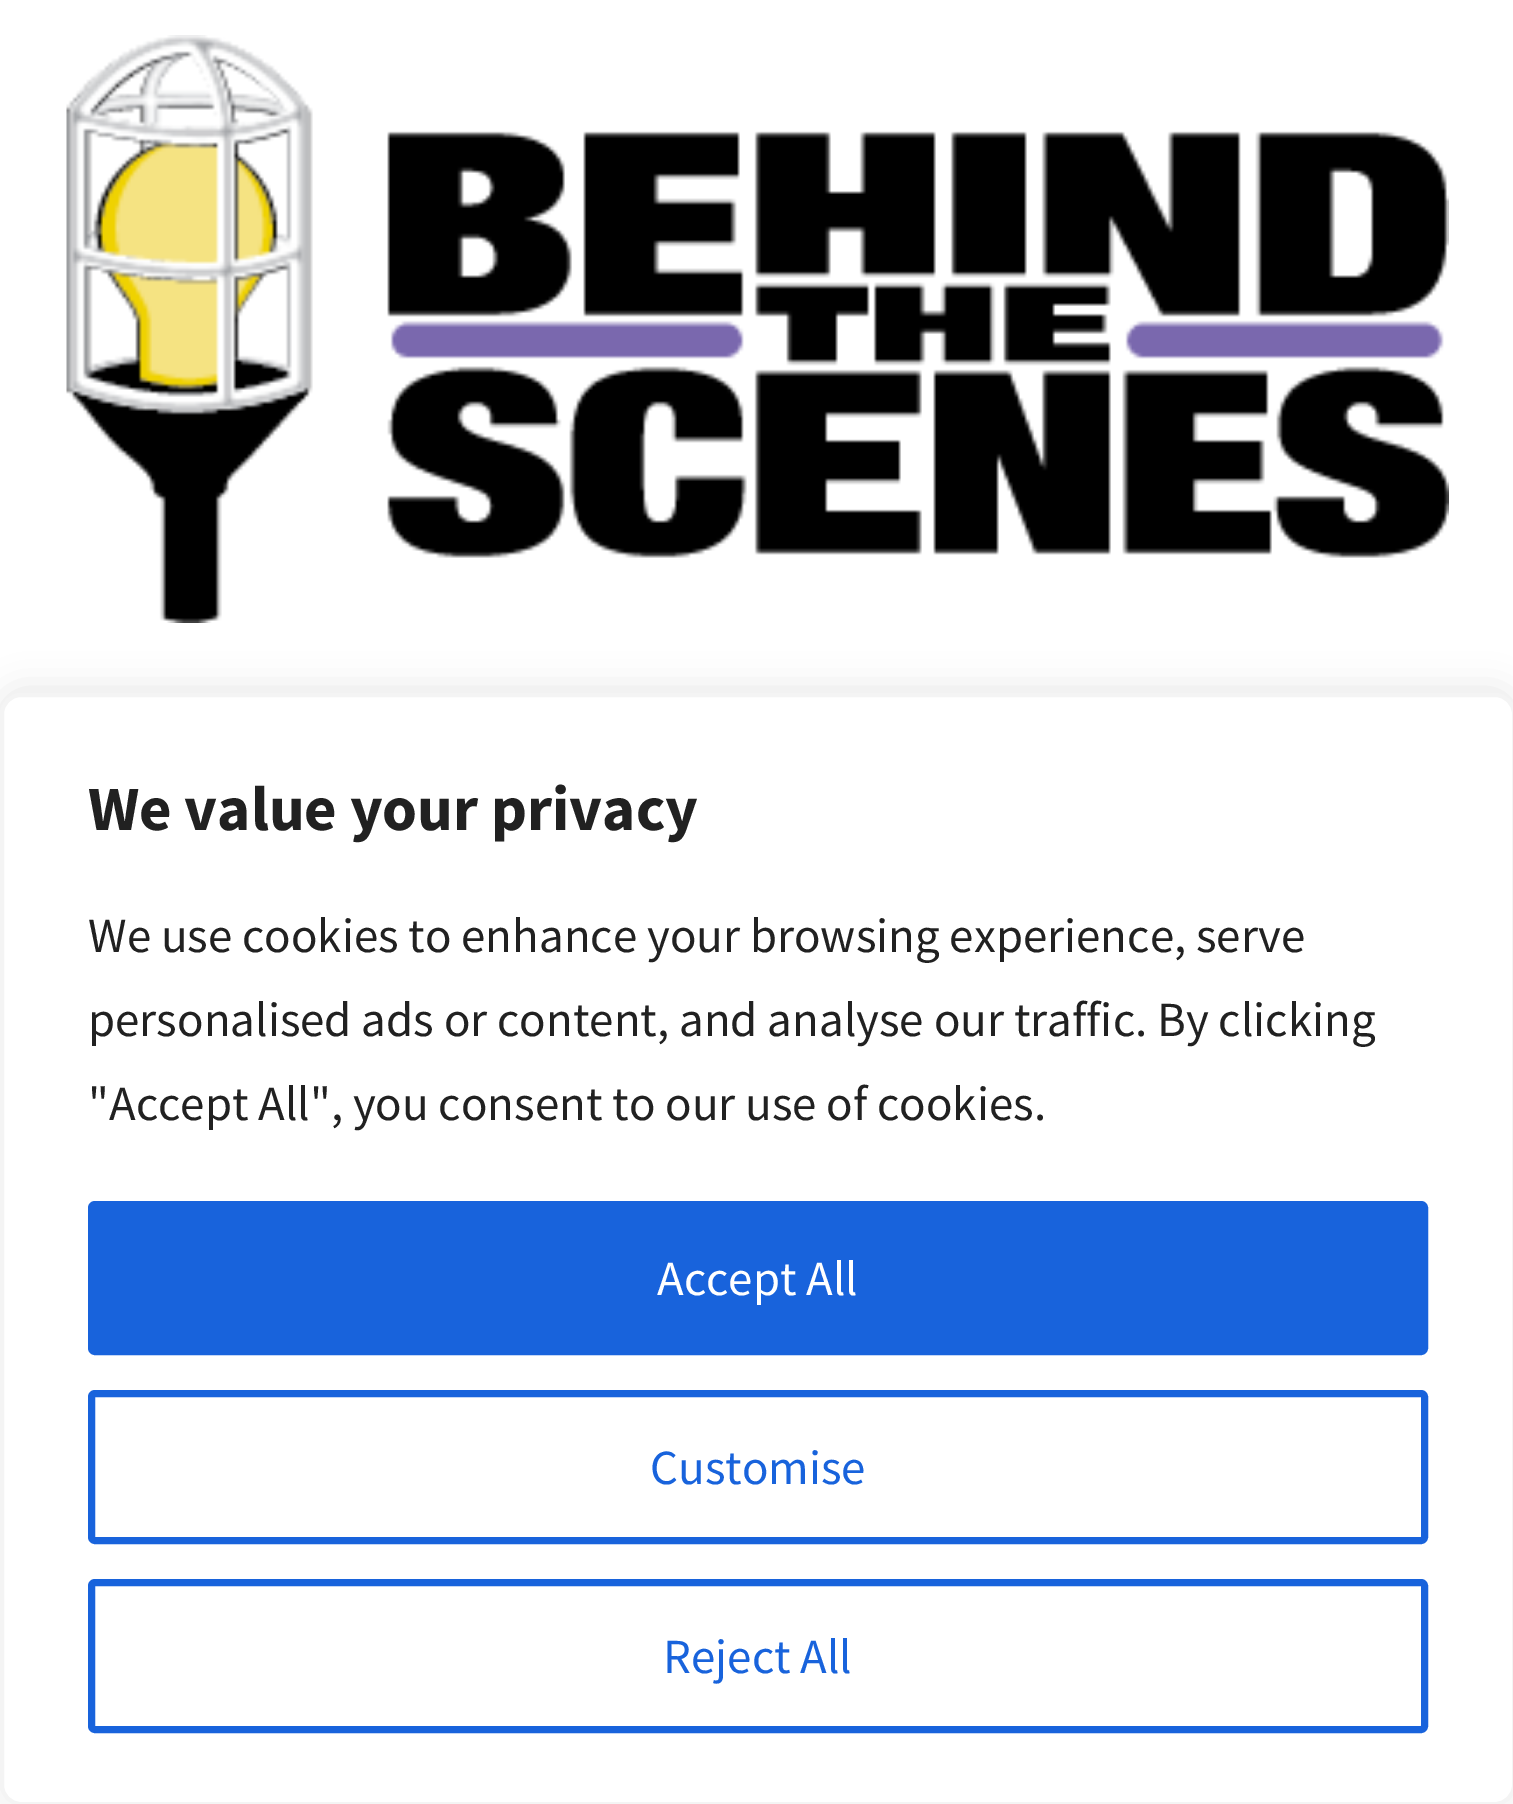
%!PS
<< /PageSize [1513 1804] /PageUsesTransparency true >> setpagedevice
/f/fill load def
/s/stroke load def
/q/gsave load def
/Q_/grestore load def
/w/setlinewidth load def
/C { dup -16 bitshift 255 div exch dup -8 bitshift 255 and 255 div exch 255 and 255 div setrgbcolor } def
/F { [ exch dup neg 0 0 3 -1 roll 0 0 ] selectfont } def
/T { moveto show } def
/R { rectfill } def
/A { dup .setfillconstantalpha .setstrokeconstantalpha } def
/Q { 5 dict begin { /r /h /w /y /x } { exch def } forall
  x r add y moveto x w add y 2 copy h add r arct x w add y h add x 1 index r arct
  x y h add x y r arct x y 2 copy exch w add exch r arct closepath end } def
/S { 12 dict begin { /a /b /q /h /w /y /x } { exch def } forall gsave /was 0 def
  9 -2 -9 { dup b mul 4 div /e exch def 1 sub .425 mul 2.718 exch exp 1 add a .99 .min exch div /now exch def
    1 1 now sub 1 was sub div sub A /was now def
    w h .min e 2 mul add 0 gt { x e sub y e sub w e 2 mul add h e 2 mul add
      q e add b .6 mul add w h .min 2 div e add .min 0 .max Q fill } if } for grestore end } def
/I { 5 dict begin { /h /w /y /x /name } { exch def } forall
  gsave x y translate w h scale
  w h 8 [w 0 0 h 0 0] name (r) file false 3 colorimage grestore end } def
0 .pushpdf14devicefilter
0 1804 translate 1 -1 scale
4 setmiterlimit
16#FFFFFF C
0 0 1513 1804 R
(1.rgb) 66 35 1383 588 I
16#ACABAB C
0 690 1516 1113 21 17.5 .3 S
16#FFFFFF C
2 695 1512 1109 19 Q q f Q_
16#F4F4F4 C
4 w
s
/SourceSansPro-Bold 63 F
16#212121 C
(We value your privacy) 88 830 T
/SourceSansPro-Regular 49 F
(We use cookies to enhance your browsing experience, serve) 88 952 T
(personalised ads or content, and analyse our traffic. By clicking) 88 1036 T
("Accept All", you consent to our use of cookies.) 88 1120 T
16#1863DC C
91.5 1204.5 1333 147 3.5 Q q f Q_
7 w
s
16#FFFFFF C
(Accept All) 657 1295 T
16#1863DC C
91.5 1393.5 1333 147 3.5 Q s
(Customise) 650 1484 T
91.5 1582.5 1333 147 3.5 Q s
(Reject All) 663 1673 T
.poppdf14devicefilter showpage
